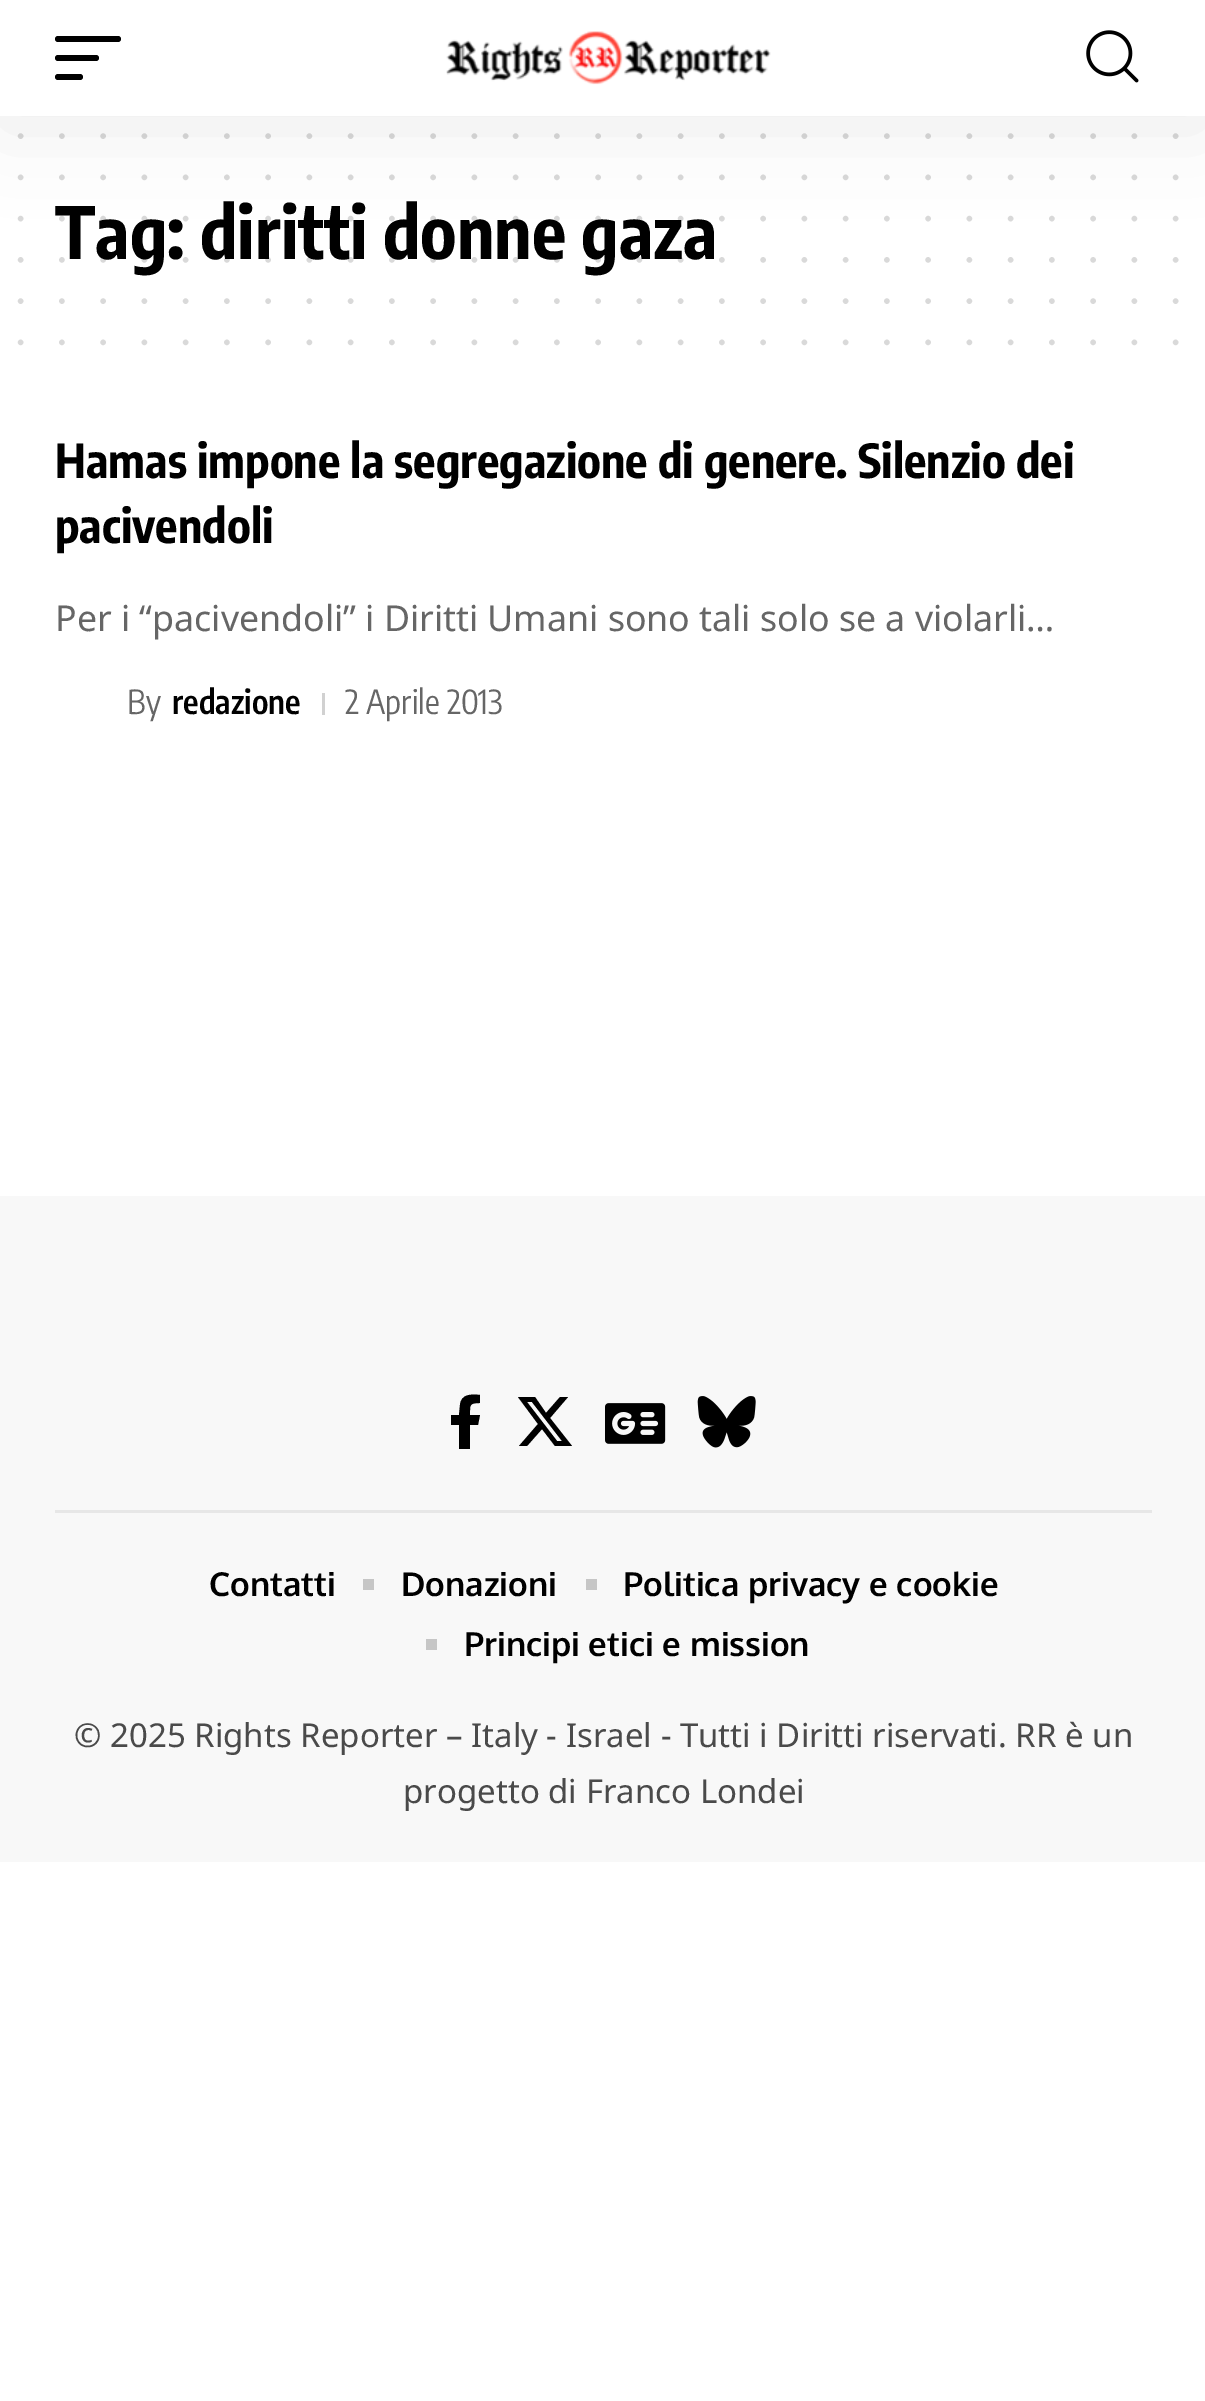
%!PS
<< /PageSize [1205 2401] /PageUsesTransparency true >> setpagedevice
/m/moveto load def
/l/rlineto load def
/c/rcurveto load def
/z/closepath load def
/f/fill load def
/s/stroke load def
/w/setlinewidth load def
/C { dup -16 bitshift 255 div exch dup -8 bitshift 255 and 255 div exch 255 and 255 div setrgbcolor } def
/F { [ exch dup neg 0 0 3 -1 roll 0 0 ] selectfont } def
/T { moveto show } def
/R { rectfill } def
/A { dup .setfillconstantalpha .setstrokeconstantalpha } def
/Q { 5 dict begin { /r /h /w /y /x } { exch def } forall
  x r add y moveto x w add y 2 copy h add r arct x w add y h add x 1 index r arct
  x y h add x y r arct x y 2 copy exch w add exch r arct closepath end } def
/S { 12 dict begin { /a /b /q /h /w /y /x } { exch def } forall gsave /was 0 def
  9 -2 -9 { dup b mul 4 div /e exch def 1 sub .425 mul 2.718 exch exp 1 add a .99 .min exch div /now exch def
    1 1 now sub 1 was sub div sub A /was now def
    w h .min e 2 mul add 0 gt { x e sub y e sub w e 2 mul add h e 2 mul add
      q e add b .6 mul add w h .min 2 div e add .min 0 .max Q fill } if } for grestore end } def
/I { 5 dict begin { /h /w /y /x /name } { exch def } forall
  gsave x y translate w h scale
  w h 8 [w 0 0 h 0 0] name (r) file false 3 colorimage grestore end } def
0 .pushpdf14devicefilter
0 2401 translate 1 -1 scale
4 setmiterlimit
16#FFFFFF C
0 0 1205 2401 R
16#D9D9D9 C
5.5 w
1 setlinecap
[0 41.25] 0 setdash
20.6 136.1 m 1155.6 0 l s
20.6 177.4 m 1155.6 0 l s
/EncodeSansCondensed-Bold 71.5 F
16#000000 C
(Tag: diritti donne gaza) 55 259 T
0.15 A
20.6 218.6 m 1155.6 0 l s
1 A
0 11 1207 116 0 41 .07 S
16#FFFFFF C
0 0 1205 116 R
16#000000 C
55 36 66 6 3 Q f
55 55 44 6 3 Q f
55 74 28 6 3 Q f
(1.rgb) 446 31 325 54 I
(2.rgb) 1086 30 53 53 I
0.15 A
20.6 259.9 m 1155.6 0 l s
1 A
16#D9D9D9 C
20.6 301.1 m 1155.6 0 l s
20.6 342.4 m 1155.6 0 l s
/EncodeSansCondensed-Bold 46.75 F
16#000000 C
(Hamas impone la segregazione di genere. Silenzio dei) 55 478 T
(pacivendoli) 55 543 T
/NotoSans-Regular 35.75 F
16#666666 C
(Per i “pacivendoli” i Diritti Umani sono tali solo se a violarli…) 55 631 T
/EncodeSansCondensed-Regular 33 F
(By) 127 714 T
/EncodeSansCondensed-SemiBold 33 F
16#000000 C
(redazione) 172 714 T
16#D1D1D1 C
322 693 3 22 R
/EncodeSansCondensed-Regular 33 F
16#666666 C
(2 Aprile 2013) 345 714 T
16#F8F8F8 C
0 1196 1205 666 R
16#000000 C
478 1425 m 2 -10 l -10 0 l 0 -10 -1 -12 10 -12 c 0 -8 l -9 -1 -19 -1 -20 10 c -1 10 l -8 0 l 0 10 l 8 0 l 0 24 l 11 0 l 0 -24 l z f
560 1397 m 8 0 l -18 21 l 22 28 l -17 0 l -13 -17 l -15 17 l -8 0 l 19 -22 l -20 -27 l 17 0 l 11 16 l z 557 1441 m 5 0 l -30 -39 l -5 0 l z f
(3.rgb) 605 1403 61 41 I
(4.rgb) 697 1396 59 52 I
16#E7E7E7 C
55 1510 1097 3 R
/Oxygen-Bold 33 F
16#000000 C
(Contatti) 209 1596 T
16#C6C6C6 C
363 1579 11 11 R
16#000000 C
(Donazioni) 401 1596 T
16#C6C6C6 C
586 1579 11 11 R
16#000000 C
(Politica privacy e cookie) 623 1596 T
16#C6C6C6 C
426 1639 11 11 R
16#000000 C
(Principi etici e mission) 464 1656 T
/NotoSans-Regular 33 F
16#4A4A4A C
(© 2025 Rights Reporter – Italy - Israel - Tutti i Diritti riservati. RR è un) 74 1747 T
(progetto di Franco Londei) 403 1803 T
.poppdf14devicefilter showpage
